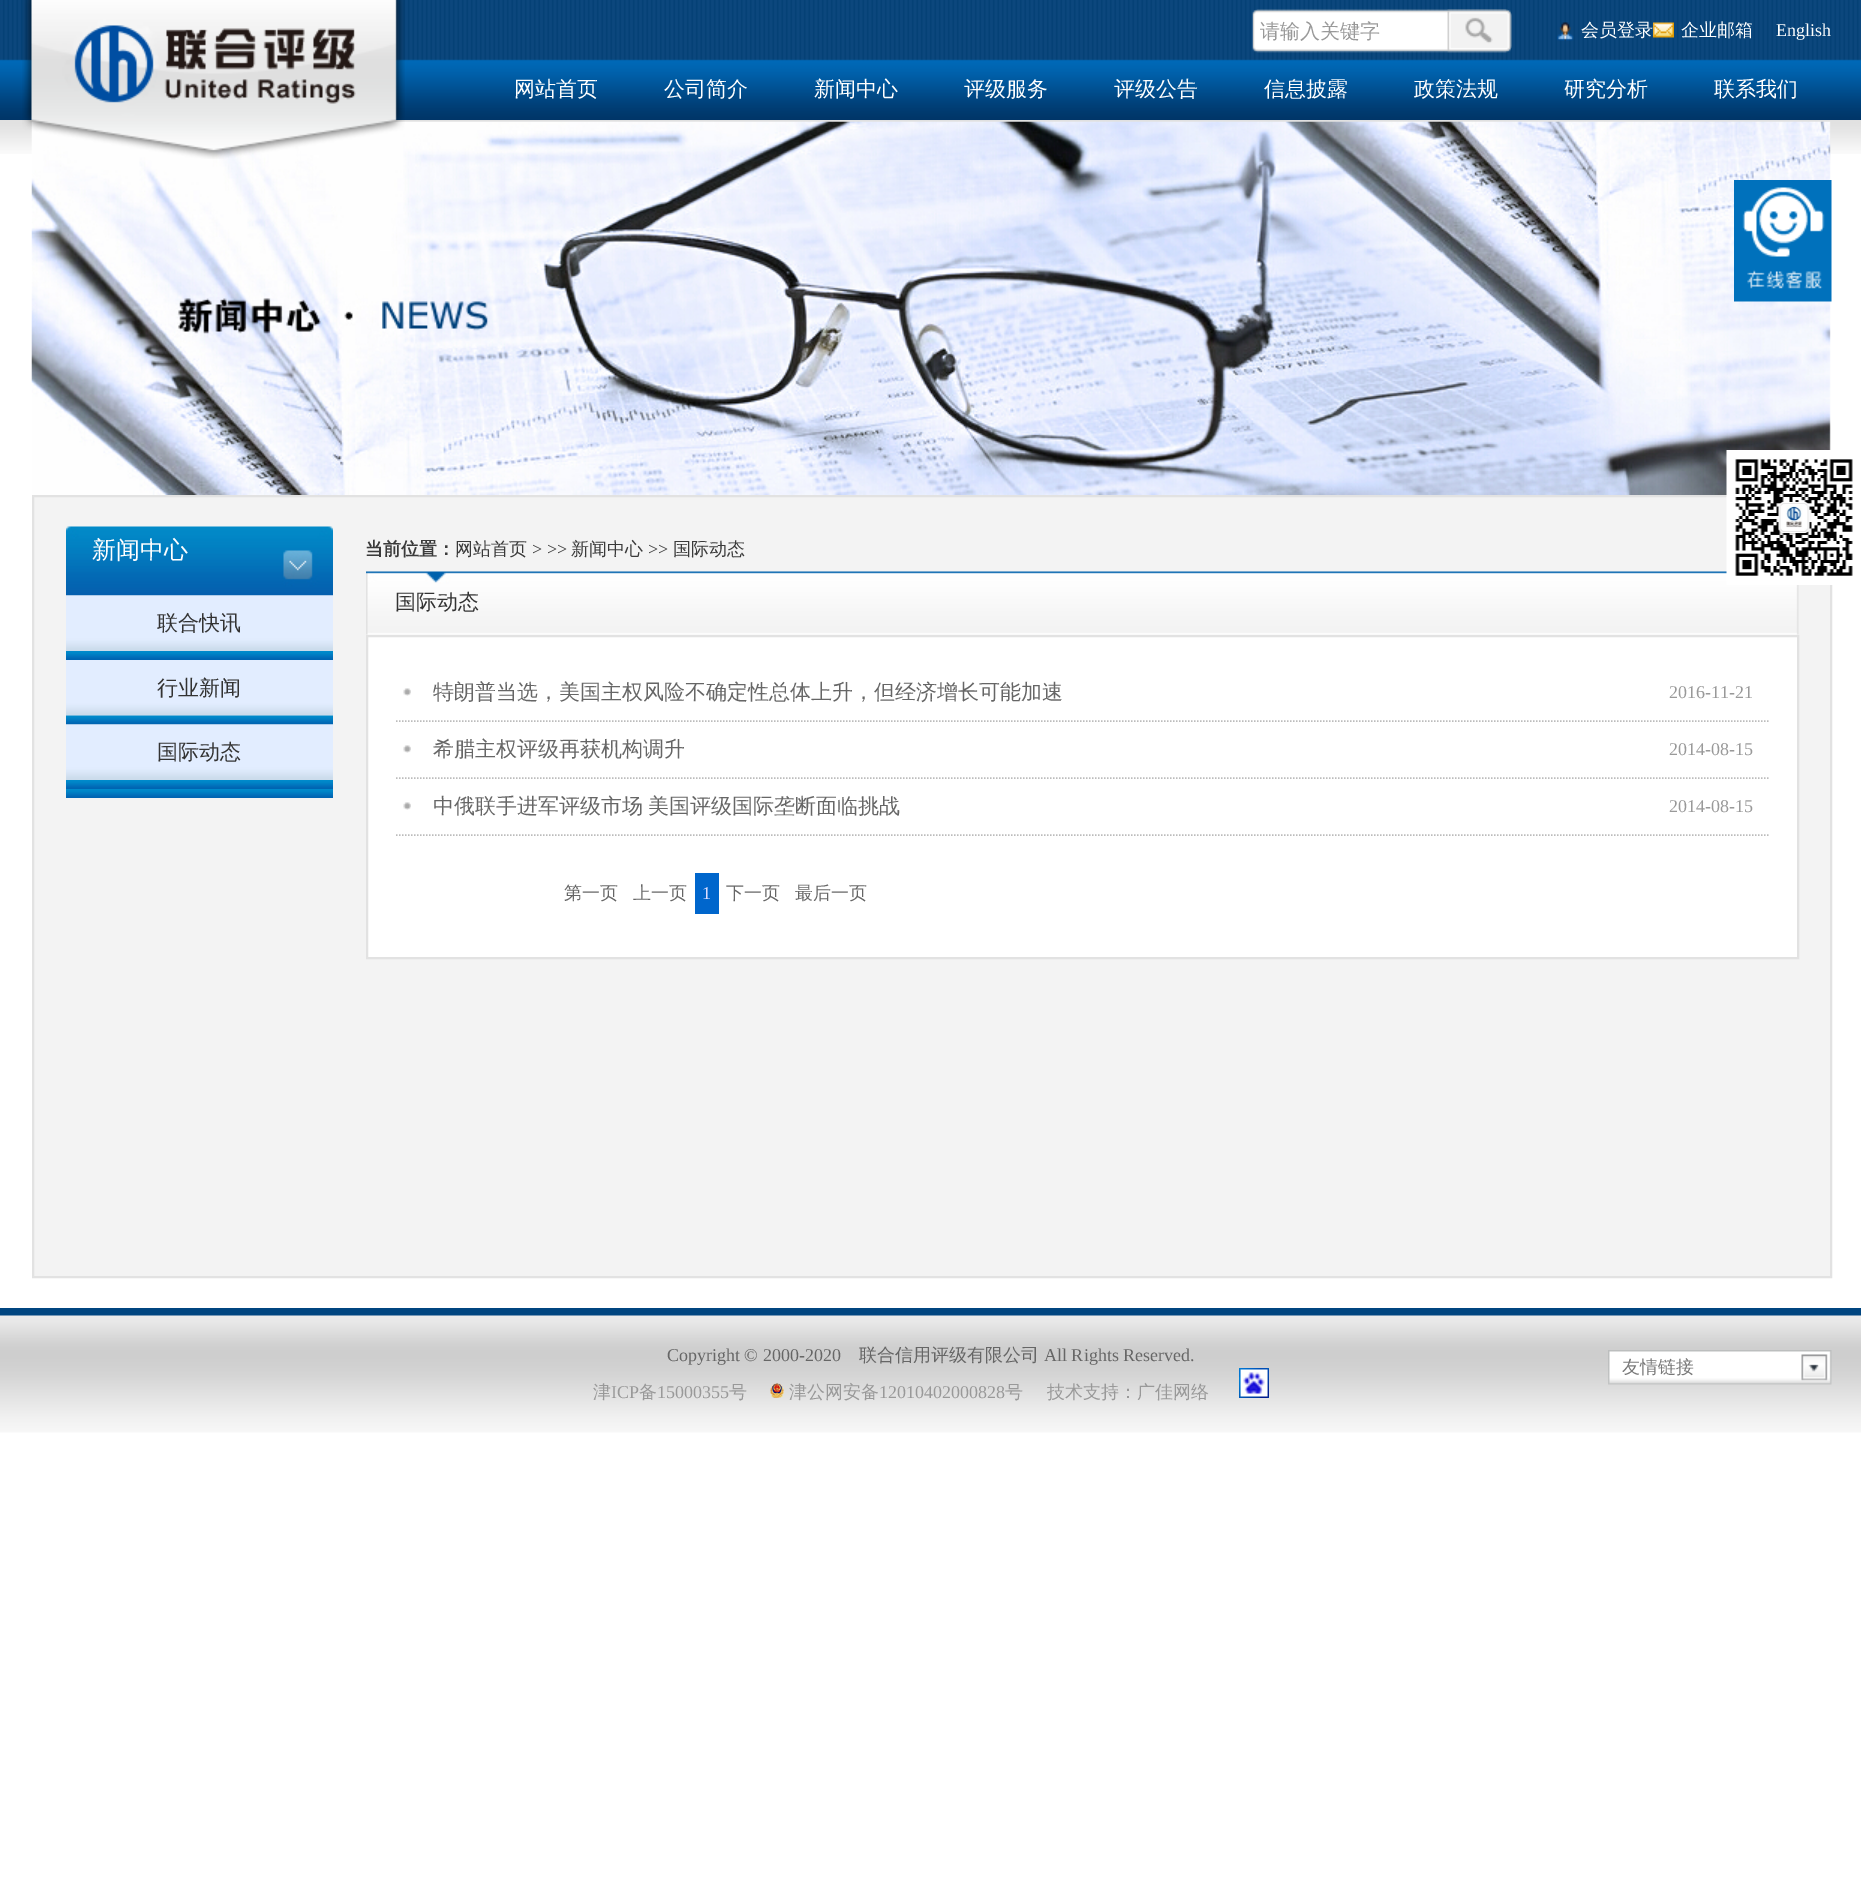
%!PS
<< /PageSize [1861 1884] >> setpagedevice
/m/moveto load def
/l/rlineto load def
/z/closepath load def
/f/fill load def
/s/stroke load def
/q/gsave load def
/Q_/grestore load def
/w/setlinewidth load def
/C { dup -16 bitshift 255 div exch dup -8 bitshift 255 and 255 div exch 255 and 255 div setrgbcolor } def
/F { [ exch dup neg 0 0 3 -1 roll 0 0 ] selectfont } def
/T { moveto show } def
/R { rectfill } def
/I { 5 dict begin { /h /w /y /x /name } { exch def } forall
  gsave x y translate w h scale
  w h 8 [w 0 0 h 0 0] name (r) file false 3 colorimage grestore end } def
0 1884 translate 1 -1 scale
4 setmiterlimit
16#FFFFFF C
0 0 1861 1884 R
(1.rgb) 0 0 1861 120 I
(8.rgb) 0 120 1861 34 I
(9.rgb) 31 121 1800 374 I
(2.rgb) 22 0 383 159 I
(3.rgb) 1252 9 260 44 I
/WenQuanYiZenHei-Medium 20 F
16#999999 C
(请输入关键字) 1260 38 T
(4.rgb) 1557 22 17 19 I
/WenQuanYiZenHei-Medium 18 F
16#FFFFFF C
(会员登录) 1581 36 T
(5.rgb) 1653 22 21 16 I
(企业邮箱) 1681 36 T
/LiberationSerif-Regular 18 F
(English) 1776 36 T
/WenQuanYiZenHei-Medium 21 F
(网站首页) 514 96 T
(公司简介) 664 96 T
(新闻中心) 814 96 T
(评级服务) 964 96 T
(评级公告) 1114 96 T
(信息披露) 1264 96 T
(政策法规) 1414 96 T
(研究分析) 1564 96 T
(联系我们) 1714 96 T
16#F3F3F3 C
33 496 m 1798 0 l 0 781 l -1798 0 l z q f Q_
16#E2E2E2 C
2 w
s
(16.rgb) 366 571 1433 64 I
(6.rgb) 1726 450 127 135 I
(7.rgb) 1734 180 98 122 I
(10.rgb) 66 526 267 70 I
/WenQuanYiZenHei-Medium 24 F
16#FFFFFF C
(新闻中心) 92 558 T
(11.rgb) 66 789 267 9 I
(12.rgb) 66 595 267 56 I
/WenQuanYiZenHei-Medium 21 F
16#333333 C
(联合快讯) 157 630 T
(11.rgb) 66 651 267 9 I
(13.rgb) 66 660 267 56 I
(行业新闻) 157 695 T
(14.rgb) 66 715 267 10 I
(15.rgb) 66 724 267 56 I
(国际动态) 157 759 T
(11.rgb) 66 780 267 9 I
/WenQuanYiZenHei-Bold 18 F
16#3A3A3A C
(当前位置：) 365 555 T
/WenQuanYiZenHei-Medium 18 F
(网站首页) 455 555 T
/LiberationSerif-Regular 18 F
(> >>) 532 555 T
/WenQuanYiZenHei-Medium 18 F
(新闻中心) 571 555 T
/LiberationSerif-Regular 18 F
(>>) 648 555 T
/WenQuanYiZenHei-Medium 18 F
(国际动态) 673 555 T
/WenQuanYiZenHei-Medium 21 F
16#333333 C
(国际动态) 395 609 T
16#FFFFFF C
367 636 m 1431 0 l 0 322 l -1431 0 l z q f Q_
16#E2E2E2 C
s
(17.rgb) 403 688 8 8 I
16#BCBCBC C
1.5 w
[1.5 1.5] 0 setdash
396 721 m 1372.5 0 l s
16#666666 C
(特朗普当选，美国主权风险不确定性总体上升，但经济增长可能加速) 433 699 T
/LiberationSerif-Regular 18 F
16#999999 C
(2016-11-21) 1669 698 T
(17.rgb) 403 745 8 8 I
16#BCBCBC C
396 778 m 1372.5 0 l s
/WenQuanYiZenHei-Medium 21 F
16#666666 C
(希腊主权评级再获机构调升) 433 756 T
/LiberationSerif-Regular 18 F
16#999999 C
(2014-08-15) 1669 755 T
(17.rgb) 403 802 8 8 I
16#BCBCBC C
396 835 m 1372.5 0 l s
/WenQuanYiZenHei-Medium 21 F
16#666666 C
433 813 m -1 0 32 (中俄联手进军评级市场 美国评级国际垄断面临挑战) widthshow
/LiberationSerif-Regular 18 F
16#999999 C
(2014-08-15) 1669 812 T
/WenQuanYiZenHei-Medium 18 F
16#666666 C
(第一页) 564 899 T
(上一页) 633 899 T
16#0066CC C
695 873 24 41 R
/LiberationSerif-Regular 18 F
16#DDDDFF C
(1) 702 899 T
/WenQuanYiZenHei-Medium 18 F
16#666666 C
(下一页) 726 899 T
(最后一页) 795 899 T
(18.rgb) 0 1308 1861 125 I
/LiberationSerif-Regular 18 F
(Copyright © 2000-2020) 667 1361 T
/WenQuanYiZenHei-Medium 18 F
(联合信用评级有限公司) 859 1361 T
/LiberationSerif-Regular 18 F
(All Rights Reserved.) 1044 1361 T
/WenQuanYiZenHei-Medium 18 F
16#999999 C
(津) 593 1398 T
/LiberationSerif-Regular 18 F
(ICP) 611 1398 T
/WenQuanYiZenHei-Medium 18 F
(备) 639 1398 T
/LiberationSerif-Regular 18 F
(15000355) 657 1398 T
/WenQuanYiZenHei-Medium 18 F
(号) 729 1398 T
(19.rgb) 770 1383 14 15 I
(津公网安备) 789 1398 T
/LiberationSerif-Regular 18 F
(12010402000828) 879 1398 T
/WenQuanYiZenHei-Medium 18 F
(号) 1005 1398 T
(技术支持：广佳网络) 1047 1398 T
(20.rgb) 1239 1368 30 30 I
(21.rgb) 1608 1350 224 35 I
16#787878 C
(友情链接) 1622 1373 T
showpage
